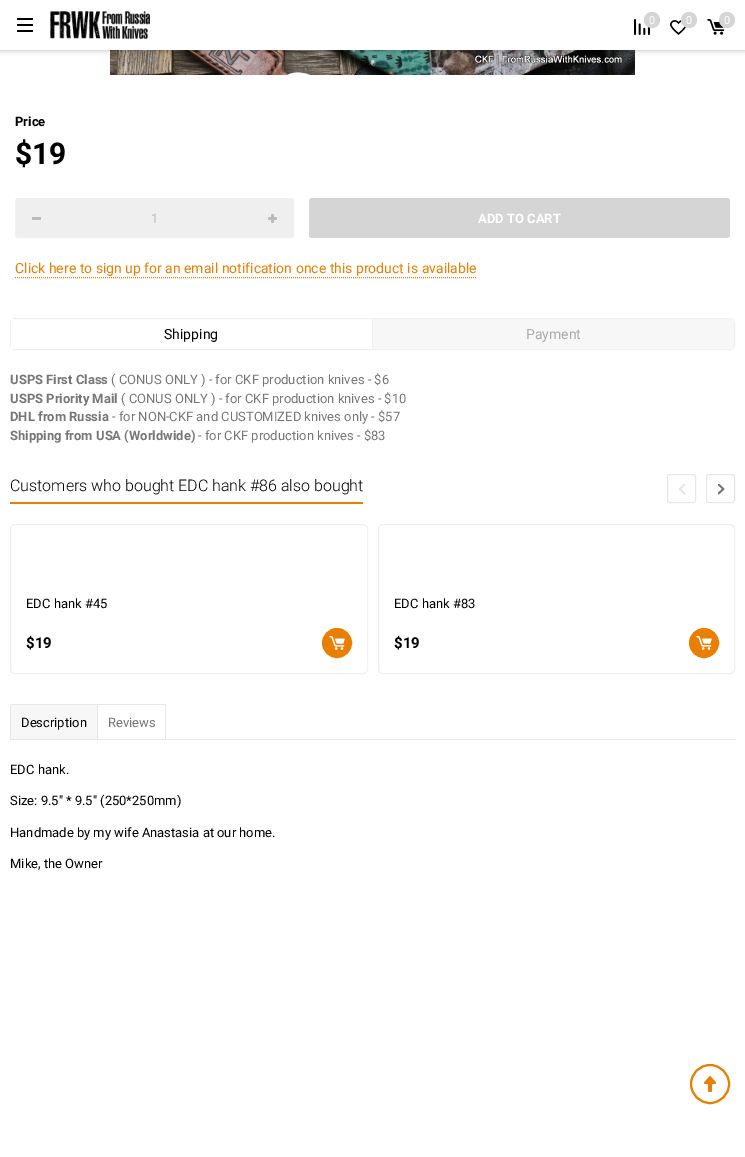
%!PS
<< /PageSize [745 1157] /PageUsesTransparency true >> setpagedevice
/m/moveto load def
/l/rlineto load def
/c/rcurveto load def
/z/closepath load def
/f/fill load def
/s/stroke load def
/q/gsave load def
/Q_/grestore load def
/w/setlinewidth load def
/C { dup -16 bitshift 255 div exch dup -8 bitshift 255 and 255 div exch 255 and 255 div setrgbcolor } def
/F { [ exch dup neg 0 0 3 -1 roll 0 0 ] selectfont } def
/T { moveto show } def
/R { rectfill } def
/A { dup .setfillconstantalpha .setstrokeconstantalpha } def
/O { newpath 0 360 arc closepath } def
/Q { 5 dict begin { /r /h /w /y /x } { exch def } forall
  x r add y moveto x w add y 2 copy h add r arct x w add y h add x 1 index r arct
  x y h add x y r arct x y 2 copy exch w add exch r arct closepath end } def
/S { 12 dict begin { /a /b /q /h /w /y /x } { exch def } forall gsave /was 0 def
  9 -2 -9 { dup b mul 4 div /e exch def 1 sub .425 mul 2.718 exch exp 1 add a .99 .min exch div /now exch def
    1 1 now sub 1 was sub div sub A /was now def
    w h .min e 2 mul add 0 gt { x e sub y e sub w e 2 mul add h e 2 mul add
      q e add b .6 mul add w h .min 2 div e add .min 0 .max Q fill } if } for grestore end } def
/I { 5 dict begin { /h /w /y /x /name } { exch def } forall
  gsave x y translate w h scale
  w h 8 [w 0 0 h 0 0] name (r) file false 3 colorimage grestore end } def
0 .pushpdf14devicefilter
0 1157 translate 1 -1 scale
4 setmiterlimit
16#FFFFFF C
0 0 745 1157 R
(5.rgb) 110 50 525 25 I
16#000000 C
0 0 745 50 0 3 .3 S
16#FFFFFF C
0 0 745 50 R
16#000000 C
17 24 16 2 1 Q f
17 18 16 2 1 Q f
17 30 16 2 1 Q f
(1.rgb) 50 11 100 28 I
(2.rgb) 634 19 16 16 I
16#D5D5D5 C
652 20 8 O f
/Roboto-Regular 11 F
16#FFFFFF C
(0) 649 24 T
(3.rgb) 670 20 16 15 I
16#D5D5D5 C
689 20 8 O f
16#FFFFFF C
(0) 686 24 T
(4.rgb) 707 19 18 16 I
16#D5D5D5 C
727 20 8 O f
16#FFFFFF C
(0) 724 24 T
/Roboto-Bold 13 F
16#000000 C
(Price) 15 126 T
/Roboto-Bold 30 F
($19) 15 164 T
16#EFEFEF C
15.5 198.5 278 39 2.5 Q q f Q_
16#F0F0F0 C
s
16#BABABA C
32 217 9 3 1 Q f
/Roboto-Regular 13 F
(1) 151 223 T
(6.rgb) 268 214 9 9 I
16#D5D5D5 C
309 198 421 40 3 Q f
/Roboto-Bold 13 F
16#FFFFFF C
(ADD TO CART) 478 223 T
/Roboto-Regular 14 F
16#E97E00 C
(Click here to sign up for an email notification once this product is available) 15 273 T
[1 1] 0 setdash
15 277.5 m 462 0 l s
16#F0F0F0 C
[] 0 setdash
10.5 318.5 724 31 4.5 Q s
16#FFFFFF C
11 319 3 30 R
16#F0F0F0 C
372 319 1 30 R
16#000000 C
(Shipping) 164 339 T
16#F7F7F7 C
373 319 361 30 R
16#AAAAAA C
(Payment) 526 339 T
/Roboto-Bold 13 F
16#777777 C
(USPS First Class) 10 384 T
/Roboto-Regular 13 F
(\( CONUS ONLY \) - for CKF production knives - $6) 111 384 T
/Roboto-Bold 13 F
(USPS Priority Mail) 10 403 T
/Roboto-Regular 13 F
(\( CONUS ONLY \) - for CKF production knives - $10) 121 403 T
/Roboto-Bold 13 F
(DHL from Russia) 10 421 T
/Roboto-Regular 13 F
(- for NON-CKF and CUSTOMIZED knives only - $57) 112 421 T
/Roboto-Bold 13 F
(Shipping from USA \(Worldwide\)) 10 440 T
/Roboto-Regular 13 F
(- for CKF production knives - $83) 198 440 T
16#E97E00 C
10 502 353 2 R
/Roboto-Light 16 F
16#000000 C
(Customers who bought EDC hank #86 also bought) 10 491 T
16#E7E7E7 C
667.5 474.5 28 28 2.5 Q s
(7.rgb) 679 484 7 11 I
706.5 474.5 28 28 2.5 Q s
(8.rgb) 718 484 7 11 I
16#F0F0F0 C
10.5 524.5 357 149 4.5 Q s
/Roboto-Regular 13 F
16#000000 C
(EDC hank #45) 26 608 T
/Roboto-Bold 15 F
($19) 26 648 T
16#E97E00 C
337 643 14 O q f Q_
2 w
s
(9.rgb) 329 635 16 15 I
16#F0F0F0 C
1 w
378.5 524.5 356 149 4.5 Q s
/Roboto-Regular 13 F
16#000000 C
(EDC hank #83) 394 608 T
/Roboto-Bold 15 F
($19) 394 648 T
16#E97E00 C
704 643 14 O q f Q_
2 w
s
(9.rgb) 696 635 16 15 I
16#E7E7E7 C
10 739 725 1 R
13 704 m 153 0 l 0 35 l -156 0 l 0 -32 l 0 -2 1 -3 3 -3 c z 13 705 m 152 0 l 0 34 l -154 0 l 0 -32 l 0 -1 1 -2 2 -2 c z eofill
16#F7F7F7 C
11 705 86 34 R
16#E7E7E7 C
97 705 1 34 R
/Roboto-Regular 13 F
16#000000 C
(Description) 21 727 T
16#777777 C
(Reviews) 108 727 T
16#000000 C
(EDC hank.) 10 774 T
(Size: 9.5" * 9.5" \(250*250mm\)) 10 805 T
(Handmade by my wife Anastasia at our home.) 10 837 T
(Mike, the Owner) 10 868 T
16#E97E00 C
710 1084 19 O s
(10.rgb) 703 1076 14 16 I
.poppdf14devicefilter showpage
